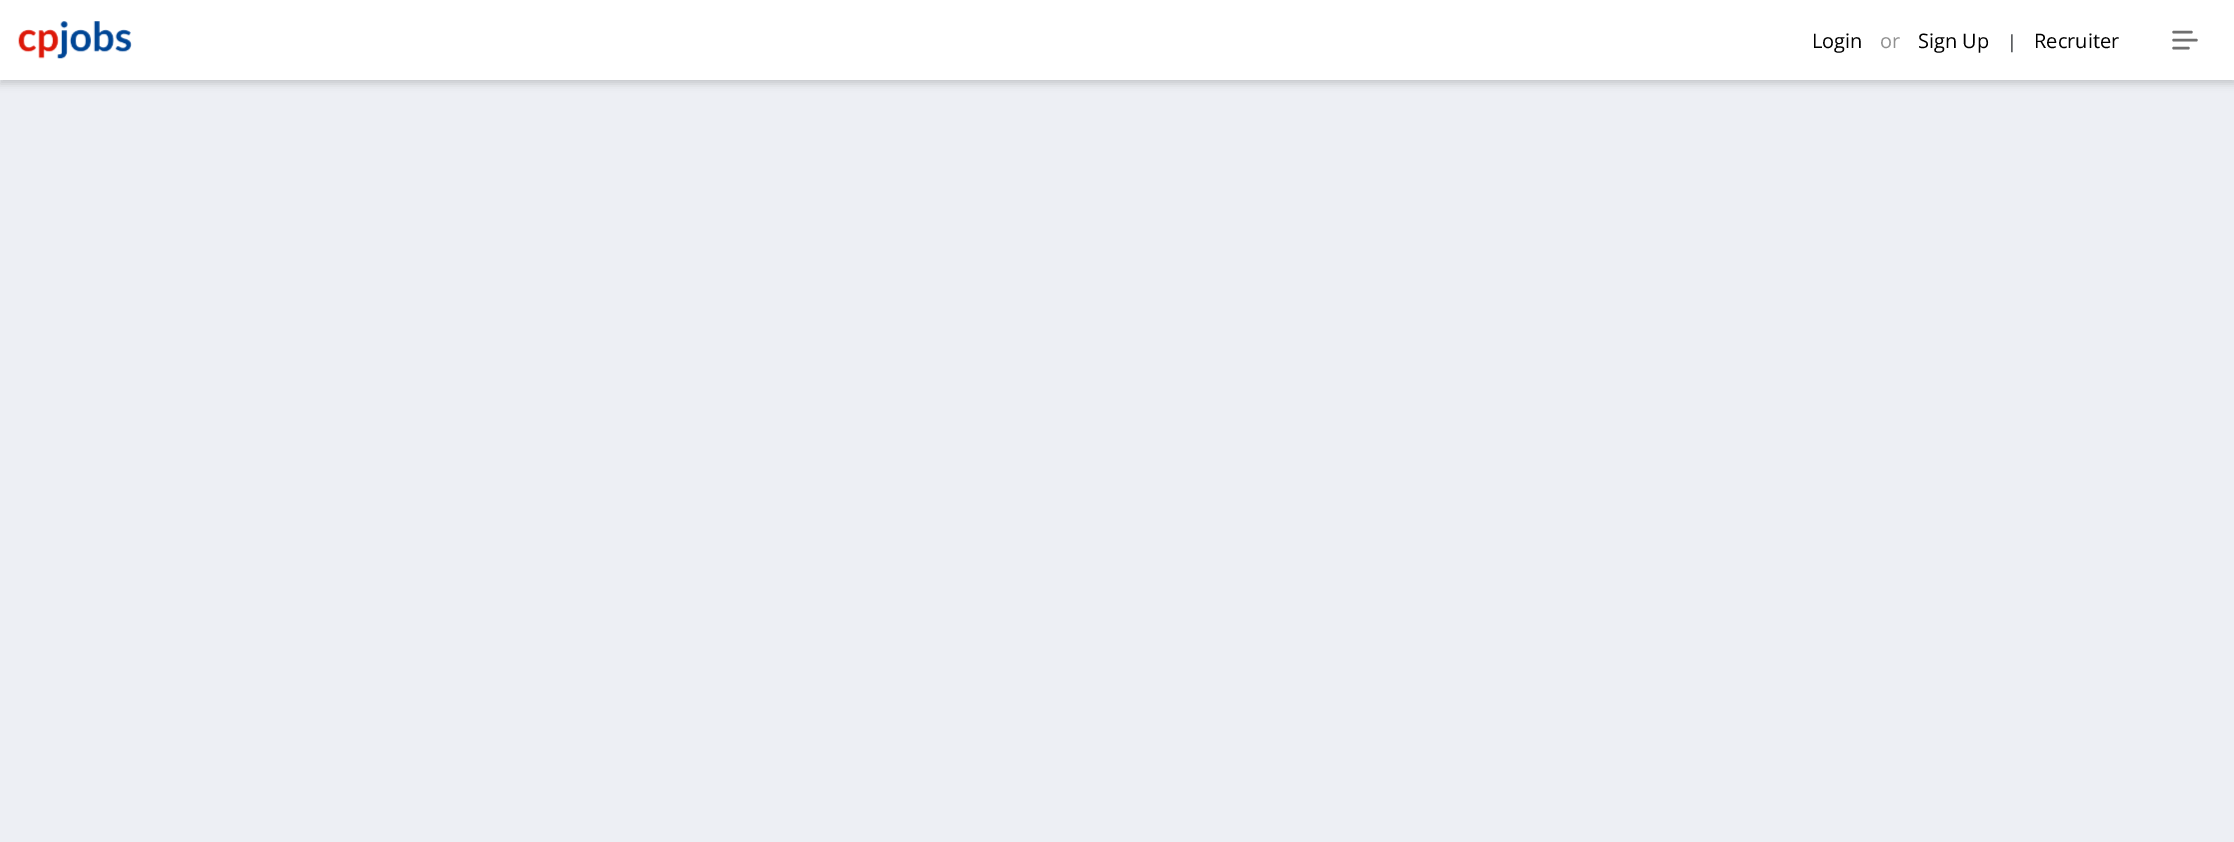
%!PS
<< /PageSize [2234 842] /PageUsesTransparency true >> setpagedevice
/m/moveto load def
/l/rlineto load def
/s/stroke load def
/w/setlinewidth load def
/C { dup -16 bitshift 255 div exch dup -8 bitshift 255 and 255 div exch 255 and 255 div setrgbcolor } def
/F { [ exch dup neg 0 0 3 -1 roll 0 0 ] selectfont } def
/T { moveto show } def
/R { rectfill } def
/A { dup .setfillconstantalpha .setstrokeconstantalpha } def
/Q { 5 dict begin { /r /h /w /y /x } { exch def } forall
  x r add y moveto x w add y 2 copy h add r arct x w add y h add x 1 index r arct
  x y h add x y r arct x y 2 copy exch w add exch r arct closepath end } def
/S { 12 dict begin { /a /b /q /h /w /y /x } { exch def } forall gsave /was 0 def
  9 -2 -9 { dup b mul 4 div /e exch def 1 sub .425 mul 2.718 exch exp 1 add a .99 .min exch div /now exch def
    1 1 now sub 1 was sub div sub A /was now def
    w h .min e 2 mul add 0 gt { x e sub y e sub w e 2 mul add h e 2 mul add
      q e add b .6 mul add w h .min 2 div e add .min 0 .max Q fill } if } for grestore end } def
/I { 5 dict begin { /h /w /y /x /name } { exch def } forall
  gsave x y translate w h scale
  w h 8 [w 0 0 h 0 0] name (r) file false 3 colorimage grestore end } def
0 .pushpdf14devicefilter
0 842 translate 1 -1 scale
4 setmiterlimit
16#EDEFF4 C
0 0 2234 842 R
16#000000 C
0 4 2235 80 0 4 .16 S
16#FFFFFF C
0 0 2234 80 R
(1.rgb) 18 21 114 38 I
/OpenSans-Regular 20 F
16#000000 C
(Login) 1812 48 T
16#919191 C
(or) 1880 48 T
16#000000 C
(Sign Up) 1918 48 T
/OpenSans-Regular 18 F
16#212529 C
(|) 2007 48 T
/OpenSans-Regular 20 F
16#000000 C
(Recruiter) 2034 48 T
16#707070 C
2.4 w
1 setlinecap
2173.5 32 m 18 0 l 2173.5 40 m 23 0 l 2173.5 48 m 15 0 l s
.poppdf14devicefilter showpage
